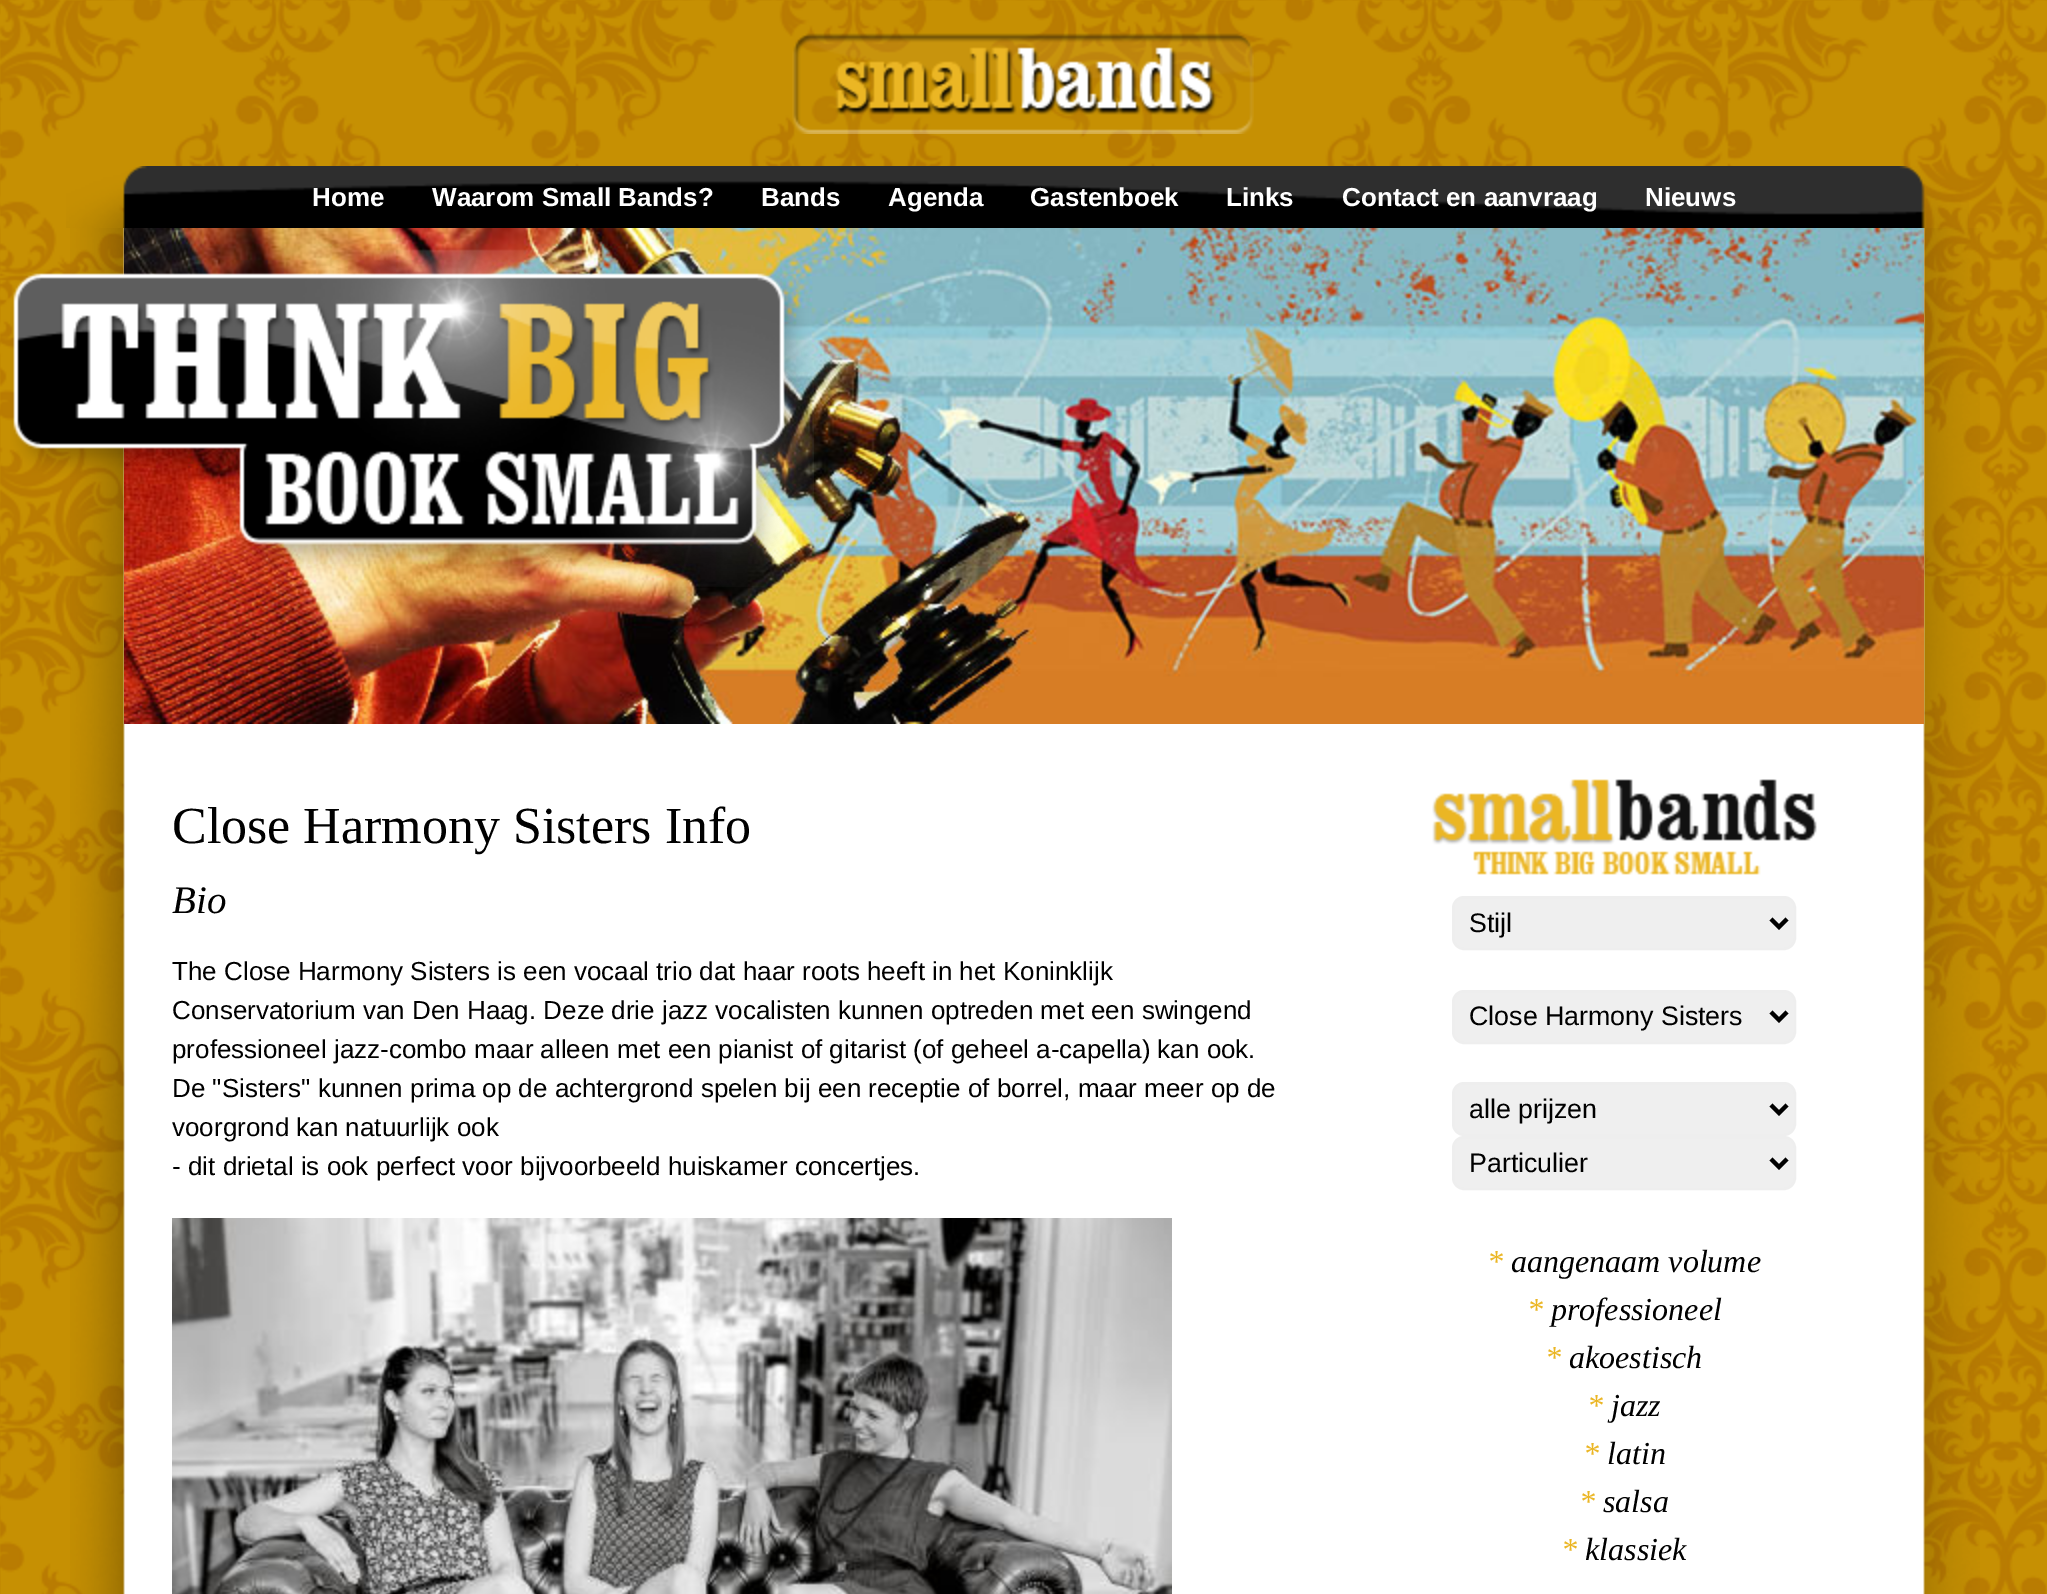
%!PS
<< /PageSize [2047 1594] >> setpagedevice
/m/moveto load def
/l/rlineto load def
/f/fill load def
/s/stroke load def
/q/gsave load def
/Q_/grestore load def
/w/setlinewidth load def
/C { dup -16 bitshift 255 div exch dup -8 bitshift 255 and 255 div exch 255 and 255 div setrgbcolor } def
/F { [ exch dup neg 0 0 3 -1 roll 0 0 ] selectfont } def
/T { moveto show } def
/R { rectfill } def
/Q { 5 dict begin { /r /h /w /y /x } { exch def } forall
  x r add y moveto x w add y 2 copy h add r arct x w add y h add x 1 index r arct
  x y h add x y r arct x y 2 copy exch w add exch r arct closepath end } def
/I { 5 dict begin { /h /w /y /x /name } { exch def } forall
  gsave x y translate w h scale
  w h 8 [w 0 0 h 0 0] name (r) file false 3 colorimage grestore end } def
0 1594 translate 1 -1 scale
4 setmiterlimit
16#FFFFFF C
0 0 2047 1594 R
(1.rgb) 0 0 2047 1594 I
(2.rgb) 792 33 462 101 I
(3.rgb) 66 166 1903 62 I
/LiberationSans-Bold 26 F
(Home) 312 206 T
(Waarom Small Bands?) 432 206 T
(Bands) 761 206 T
(Agenda) 888 206 T
(Gastenboek) 1030 206 T
(Links) 1226 206 T
(Contact en aanvraag) 1342 206 T
(Nieuws) 1645 206 T
(4.rgb) 70 228 1910 1366 I
(5.rgb) 124 228 1800 496 I
(6.rgb) 10 249 804 338 I
/LiberationSerif-Regular 52 F
16#000000 C
(Close Harmony Sisters Info) 172 843 T
/LiberationSerif-Italic 39 F
(Bio) 172 913 T
/LiberationSans-Regular 26 F
(The Close Harmony Sisters is een vocaal trio dat haar roots heeft in het Koninklijk) 172 980 T
(Conservatorium van Den Haag. Deze drie jazz vocalisten kunnen optreden met een swingend) 172 1019 T
(professioneel jazz-combo maar alleen met een pianist of gitarist \(of geheel a-capella\) kan ook.) 172 1058 T
(De "Sisters" kunnen prima op de achtergrond spelen bij een receptie of borrel, maar meer op de) 172 1097 T
(voorgrond kan natuurlijk ook) 172 1136 T
(- dit drietal is ook perfect voor bijvoorbeeld huiskamer concertjes.) 172 1175 T
(7.rgb) 172 1218 1000 376 I
(8.rgb) 1432 779 385 96 I
16#EFEFEF C
1453 897 342 52 11 Q q f Q_
16#EEEEEE C
2 w
s
16#000000 C
4 w
1771 919 m 8 8 l 8 -8 l s
/LiberationSans-Regular 26.75 F
(Stijl) 1469 932 T
16#EFEFEF C
1453 991 342 52 11 Q q f Q_
16#EEEEEE C
2 w
s
16#000000 C
4 w
1771 1012 m 8 8 l 8 -8 l s
(Close Harmony Sisters) 1469 1025 T
16#EFEFEF C
1453 1083 342 52 11 Q q f Q_
16#EEEEEE C
2 w
s
16#000000 C
4 w
1771 1105 m 8 8 l 8 -8 l s
(alle prijzen) 1469 1118 T
16#EFEFEF C
1453 1137 342 52 11 Q q f Q_
16#EEEEEE C
2 w
s
16#000000 C
4 w
1771 1159 m 8 8 l 8 -8 l s
(Particulier) 1469 1172 T
/LiberationSerif-Italic 32 F
16#EBB624 C
(*) 1487 1272 T
16#000000 C
(aangenaam volume) 1511 1272 T
16#EBB624 C
(*) 1527 1320 T
16#000000 C
(professioneel) 1551 1320 T
16#EBB624 C
(*) 1545 1368 T
16#000000 C
(akoestisch) 1569 1368 T
16#EBB624 C
(*) 1587 1416 T
16#000000 C
(jazz) 1611 1416 T
16#EBB624 C
(*) 1583 1464 T
16#000000 C
(latin) 1607 1464 T
16#EBB624 C
(*) 1579 1512 T
16#000000 C
(salsa) 1603 1512 T
16#EBB624 C
(*) 1561 1560 T
16#000000 C
(klassiek) 1585 1560 T
showpage
